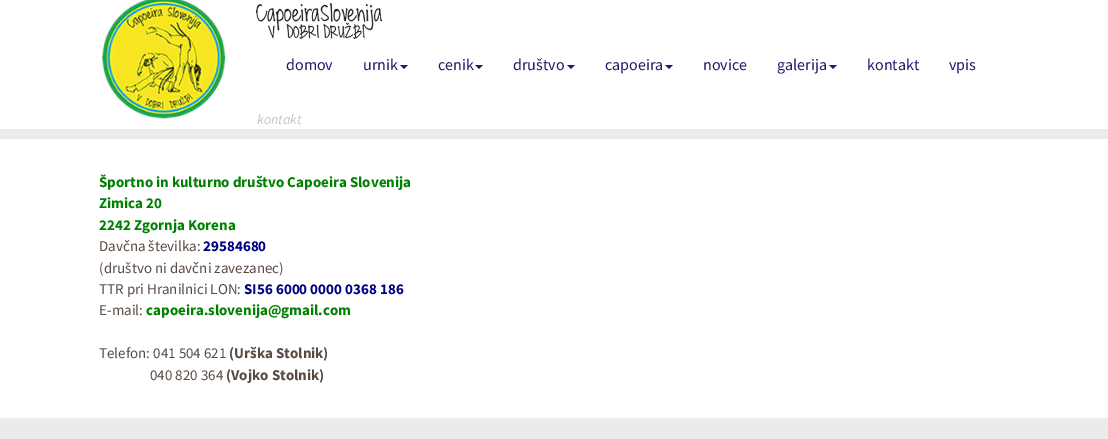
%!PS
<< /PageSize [1108 439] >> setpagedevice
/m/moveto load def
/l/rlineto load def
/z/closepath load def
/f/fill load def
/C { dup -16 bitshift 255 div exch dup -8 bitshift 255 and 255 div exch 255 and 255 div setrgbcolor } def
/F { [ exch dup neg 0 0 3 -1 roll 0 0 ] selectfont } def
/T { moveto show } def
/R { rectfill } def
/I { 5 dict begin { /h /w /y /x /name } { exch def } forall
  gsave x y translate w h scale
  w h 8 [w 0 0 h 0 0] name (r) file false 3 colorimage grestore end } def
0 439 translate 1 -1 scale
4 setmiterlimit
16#FFFFFF C
0 0 1108 439 R
(1.rgb) 102 0 124 119 I
(2.rgb) 256 3 126 36 I
/SourceSansPro-Regular 16 F
16#291769 C
(domov) 286 70 T
(urnik) 363 70 T
400 65 m 8 0 l -4 4 l z f
(cenik) 438 70 T
475 65 m 8 0 l -4 4 l z f
(društvo) 513 70 T
567 65 m 8 0 l -4 4 l z f
(capoeira) 605 70 T
665 65 m 8 0 l -4 4 l z f
(novice) 703 70 T
(galerija) 777 70 T
829 65 m 8 0 l -4 4 l z f
(kontakt) 867 70 T
(vpis) 949 70 T
/SourceSansPro-Italic 14 F
16#C5C5C5 C
(kontakt) 257 124 T
16#EBEBEB C
0 129 1108 10 R
/SourceSansPro-Bold 15 F
16#008000 C
(Športno in kulturno društvo Capoeira Slovenija) 99 187 T
(Zimica 20) 99 208 T
(2242 Zgornja Korena) 99 230 T
/SourceSansPro-Regular 15 F
16#594A42 C
(Davčna številka:) 99 251 T
/SourceSansPro-Bold 15 F
16#000080 C
(29584680) 203 251 T
/SourceSansPro-Regular 15 F
16#594A42 C
(\(društvo ni davčni zavezanec\)) 99 273 T
(TTR pri Hranilnici LON:) 99 294 T
/SourceSansPro-Bold 15 F
16#000080 C
(SI56 6000 0000 0368 186) 244 294 T
/SourceSansPro-Regular 15 F
16#594A42 C
(E-mail:) 99 315 T
/SourceSansPro-Bold 15 F
16#008000 C
(capoeira.slovenija@gmail.com) 146 315 T
/SourceSansPro-Regular 15 F
16#594A42 C
(Telefon: 041 504 621) 99 358 T
/SourceSansPro-Bold 15 F
(\(Urška Stolnik\)) 229 358 T
/SourceSansPro-Regular 15 F
(040 820 364) 150 380 T
/SourceSansPro-Bold 15 F
(\(Vojko Stolnik\)) 226 380 T
16#EBEBEB C
0 418 1108 21 R
showpage
